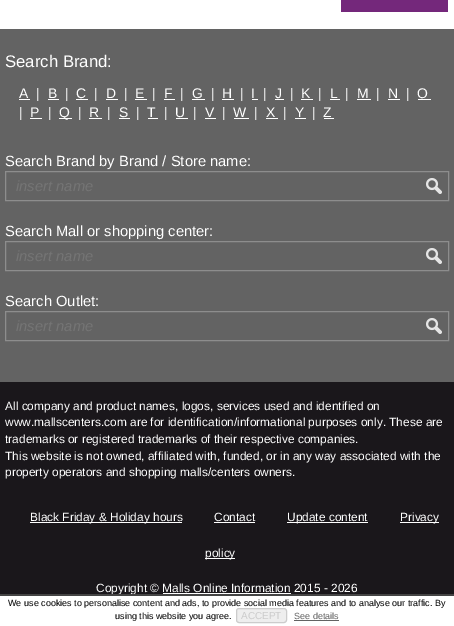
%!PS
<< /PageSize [454 626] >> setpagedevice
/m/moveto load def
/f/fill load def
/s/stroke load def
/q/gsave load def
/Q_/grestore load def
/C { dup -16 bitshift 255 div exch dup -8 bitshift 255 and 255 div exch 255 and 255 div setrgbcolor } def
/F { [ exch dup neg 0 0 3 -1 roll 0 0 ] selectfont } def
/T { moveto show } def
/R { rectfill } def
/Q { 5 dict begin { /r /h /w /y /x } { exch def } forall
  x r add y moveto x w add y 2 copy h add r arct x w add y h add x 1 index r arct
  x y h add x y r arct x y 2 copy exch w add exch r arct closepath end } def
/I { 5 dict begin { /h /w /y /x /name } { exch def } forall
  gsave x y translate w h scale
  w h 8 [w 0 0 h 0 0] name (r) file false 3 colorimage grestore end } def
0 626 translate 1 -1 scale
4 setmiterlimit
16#FFFFFF C
0 0 454 626 R
16#74287B C
341 0 107 12 R
16#636363 C
0 29 454 353 R
/LiberationSans-Regular 16.75 F
16#FFFFFF C
(Search Brand:) 5 67 T
19 99 11 1 R
/LiberationSans-Regular 13.95 F
19 98 m 2 0 (A | B | C | D | E | F | G | H | I | J | K | L | M | N | O) ashow
48 99 11 1 R
76 99 12 1 R
106 99 12 1 R
135 99 12 1 R
164 99 11 1 R
192 99 13 1 R
222 99 12 1 R
252 99 6 1 R
275 99 9 1 R
301 99 12 1 R
330 99 10 1 R
357 99 14 1 R
388 99 12 1 R
418 99 13 1 R
19 117 m 2 0 (| P |) ashow
59 118 13 1 R
59 117 m 2 0 (Q | R | S | T | U | V | W | X | Y | Z) ashow
30 118 12 1 R
89 118 13 1 R
119 118 11 1 R
148 118 10 1 R
176 118 12 1 R
205 118 11 1 R
234 118 15 1 R
266 118 12 1 R
295 118 11 1 R
324 118 10 1 R
/LiberationSans-Regular 14.75 F
(Search Brand by Brand / Store name:) 5 166 T
16#8D8D8D C
5.5 171.5 443 29 rectstroke
/LiberationSans-Italic 14.75 F
16#757575 C
(insert name) 16 191 T
(1.rgb) 426 178 16 16 I
/LiberationSans-Regular 14.75 F
16#FFFFFF C
(Search Mall or shopping center:) 5 236 T
16#8D8D8D C
5.5 241.5 443 29 rectstroke
/LiberationSans-Italic 14.75 F
16#757575 C
(insert name) 16 261 T
(1.rgb) 426 248 16 16 I
/LiberationSans-Regular 14.75 F
16#FFFFFF C
(Search Outlet:) 5 306 T
16#8D8D8D C
5.5 311.5 443 29 rectstroke
/LiberationSans-Italic 14.75 F
16#757575 C
(insert name) 16 331 T
(1.rgb) 426 318 16 16 I
16#1A171B C
0 382 454 212 R
/LiberationSans-Regular 11.9 F
16#FFFFFF C
(All company and product names, logos, services used and identified on) 5 410 T
(www.mallscenters.com are for identification/informational purposes only. These are) 5 426 T
(trademarks or registered trademarks of their respective companies.) 5 443 T
(This website is not owned, affiliated with, funded, or in any way associated with the) 5 460 T
(property operators and shopping malls/centers owners.) 5 476 T
30 522 152 1 R
(Black Friday & Holiday hours) 30 521 T
(Contact) 214 521 T
214 522 41 1 R
287 522 81 1 R
(Update content) 287 521 T
400 522 39 1 R
(Privacy) 400 521 T
205 558 30 1 R
(policy) 205 557 T
(Copyright © Malls Online Information 2015 - 2026) 96 592 T
163 593 128 1 R
16#444444 C
0 594 454 2 R
/LiberationSans-Regular 9 F
16#000000 C
(We use cookies to personalise content and ads, to provide social media features and to analyse our traffic. By) 8 606 T
(using this website you agree.) 115 619 T
16#EEEEEE C
236.5 608.5 50 14 2.5 Q q f Q_
16#CCCCCC C
s
/LiberationSans-Regular 10 F
(ACCEPT) 241 619 T
/LiberationSans-Regular 9 F
16#636363 C
(See details) 294 619 T
294 620 45 1 R
showpage
